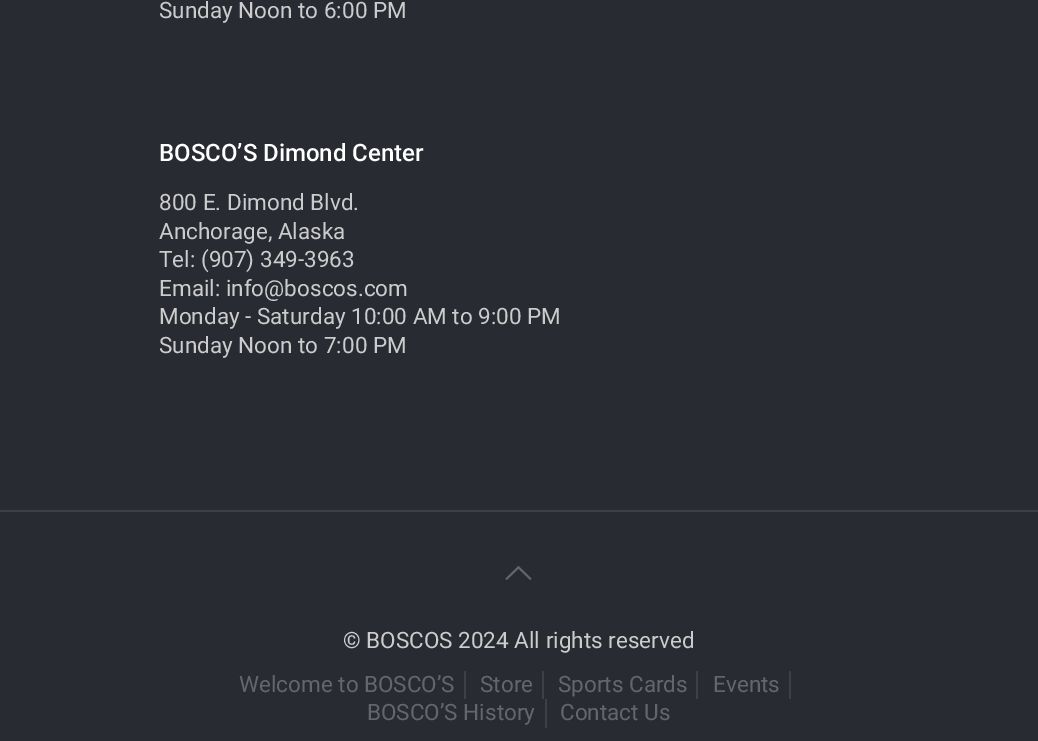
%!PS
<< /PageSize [1038 741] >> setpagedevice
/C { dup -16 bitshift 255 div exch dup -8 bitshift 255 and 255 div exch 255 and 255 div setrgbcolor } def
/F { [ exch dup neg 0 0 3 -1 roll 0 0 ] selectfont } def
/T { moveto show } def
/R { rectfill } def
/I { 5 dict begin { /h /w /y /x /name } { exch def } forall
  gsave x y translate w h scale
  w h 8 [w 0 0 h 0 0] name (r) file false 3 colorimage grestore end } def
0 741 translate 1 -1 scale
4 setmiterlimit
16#292B33 C
0 0 1038 741 R
/Roboto-Regular 22.5 F
16#CCCCCC C
(Sunday Noon to 6:00 PM) 159 18 T
/Roboto-Medium 24 F
16#FFFFFF C
(BOSCO’S Dimond Center) 159 161 T
/Roboto-Regular 22.5 F
16#CCCCCC C
(800 E. Dimond Blvd.) 159 210 T
(Anchorage, Alaska) 159 239 T
(Tel: \(907\) 349-3963) 159 267 T
(Email: info@boscos.com) 159 296 T
(Monday - Saturday 10:00 AM to 9:00 PM) 159 324 T
(Sunday Noon to 7:00 PM) 159 353 T
16#3E4047 C
0 510 1038 2 R
(1.rgb) 505 566 27 14 I
16#CCCCCC C
(© BOSCOS 2024 All rights reserved) 343 648 T
16#3E4047 C
464 671 2 28 R
16#65666C C
(Welcome to BOSCO’S) 239 692 T
16#3E4047 C
542 671 2 28 R
16#65666C C
(Store) 480 692 T
16#3E4047 C
696 671 2 28 R
16#65666C C
(Sports Cards) 558 692 T
16#3E4047 C
789 671 2 28 R
16#65666C C
(Events) 713 692 T
16#3E4047 C
545 699 2 29 R
16#65666C C
(BOSCO’S History) 367 720 T
(Contact Us) 560 720 T
showpage
